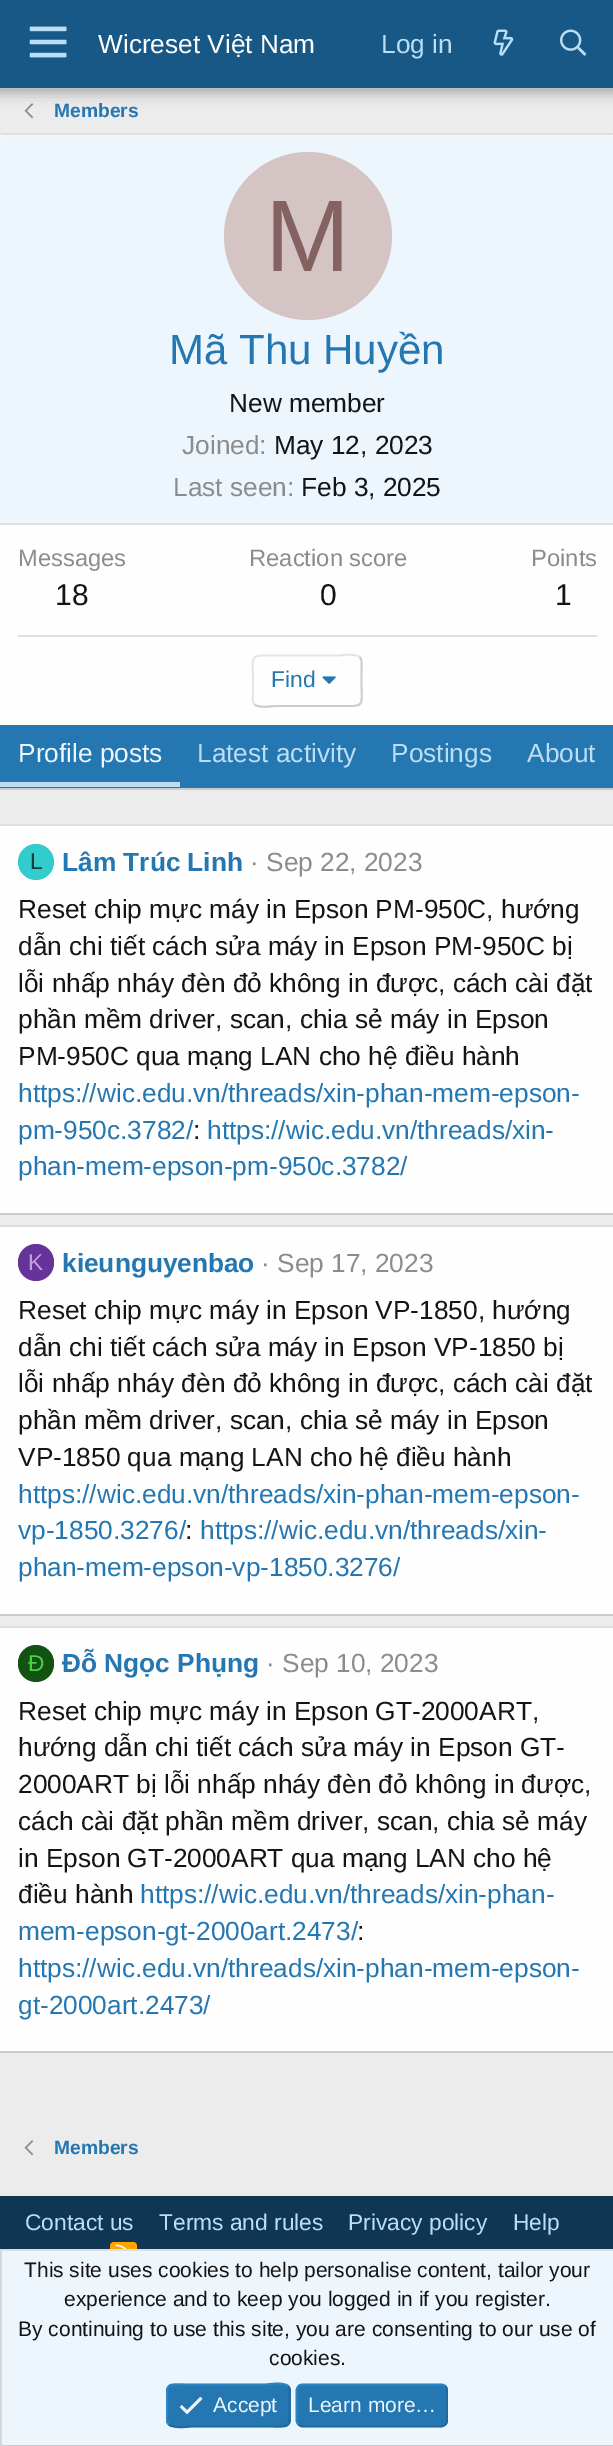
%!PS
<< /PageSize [613 2446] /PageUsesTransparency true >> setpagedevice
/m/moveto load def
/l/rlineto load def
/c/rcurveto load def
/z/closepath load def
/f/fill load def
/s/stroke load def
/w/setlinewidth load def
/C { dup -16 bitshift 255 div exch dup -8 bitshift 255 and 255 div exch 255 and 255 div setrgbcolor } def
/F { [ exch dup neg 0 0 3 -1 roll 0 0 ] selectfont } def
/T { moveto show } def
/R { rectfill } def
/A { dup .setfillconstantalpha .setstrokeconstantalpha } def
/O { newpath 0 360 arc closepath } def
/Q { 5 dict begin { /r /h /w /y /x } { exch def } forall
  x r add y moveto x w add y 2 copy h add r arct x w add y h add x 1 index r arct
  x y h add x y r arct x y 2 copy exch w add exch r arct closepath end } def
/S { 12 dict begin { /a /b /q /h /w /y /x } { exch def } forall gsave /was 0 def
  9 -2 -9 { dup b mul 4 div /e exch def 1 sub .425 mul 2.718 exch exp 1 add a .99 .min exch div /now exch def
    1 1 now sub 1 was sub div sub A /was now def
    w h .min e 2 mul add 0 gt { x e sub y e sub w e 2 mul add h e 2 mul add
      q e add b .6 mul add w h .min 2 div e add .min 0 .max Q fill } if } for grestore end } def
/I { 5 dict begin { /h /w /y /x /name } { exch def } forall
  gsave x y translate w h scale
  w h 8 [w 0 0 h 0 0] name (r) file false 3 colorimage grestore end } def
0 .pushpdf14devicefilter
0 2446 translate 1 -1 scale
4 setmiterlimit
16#ECECEC C
0 0 613 2446 R
(4.rgb) 24 103 10 16 I
16#000000 C
-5 -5 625 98 0 7 .3 S
16#185886 C
0 0 613 88 R
(1.rgb) 29 26 38 32 I
/LiberationSans-Regular 26.25 F
16#FEFEFE C
(Wicreset Việt Nam) 98 53 T
16#BCDEF5 C
(Log in) 381 53 T
(2.rgb) 493 29 21 27 I
(3.rgb) 560 29 27 27 I
/LiberationSans-Bold 19.25 F
16#2577B1 C
(Members) 54 117 T
16#FEFEFE C
0 135 613 590 R
16#DFDFDF C
0 133 613 2 R
16#CBCBCB C
0 788 613 2 R
16#EDF6FD C
5 135 m 604 0 l 3 0 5 2 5 5 c 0 385 l -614 0 l 0 -385 l 0 -3 2 -5 5 -5 c z f
16#DFDFDF C
0 523 613 2 R
16#D4C4C4 C
308 236 84 O f
/LiberationSans-Regular 102 F
16#846262 C
(M) 265 271 T
/LiberationSans-Regular 42 F
16#2577B1 C
(Mã Thu Huyền) 169 364 T
/LiberationSans-Regular 26.25 F
16#141414 C
(New member) 229 412 T
16#8C8C8C C
(Joined:) 182 454 T
16#141414 C
(May 12, 2023) 274 454 T
16#8C8C8C C
(Last seen:) 173 496 T
16#141414 C
(Feb 3, 2025) 301 496 T
/LiberationSans-Regular 23.75 F
16#8C8C8C C
(Messages) 18 566 T
/LiberationSans-Regular 30 F
16#141414 C
(18) 55 605 T
/LiberationSans-Regular 23.75 F
16#8C8C8C C
(Reaction score) 249 566 T
/LiberationSans-Regular 30 F
16#141414 C
(0) 320 605 T
/LiberationSans-Regular 23.75 F
16#8C8C8C C
(Points) 531 566 T
/LiberationSans-Regular 30 F
16#141414 C
(1) 555 605 T
16#DFDFDF C
18 635 579 2 R
16#CBCBCB C
1.8 w
359.5 657 m 3 3 2 7.5 2 11 c 0 13 l 0 27 4.5 25 -22.5 25 c -64 0 l -1 0 -16 2.5 -20.5 -1.5 c s
16#E5E5E5 C
254.5 704.5 m -2.5 -3 -1.5 -7.5 -1.5 -11 c 0 -12.5 l 0 -27.5 -4.5 -25.5 22 -25.5 c 64 0 l 1 0 16 -2.5 20.5 1.5 c s
/LiberationSans-Regular 22.75 F
16#2577B1 C
(Find) 271 687 T
(5.rgb) 322 676 14 8 I
0 725 613 63 R
16#BCDEF5 C
0 782 180 5 R
/LiberationSans-Regular 26.25 F
16#EDF6FD C
(Profile posts) 18 762 T
16#BCDEF5 C
(Latest activity) 197 762 T
(Postings) 391 762 T
(About) 527 762 T
16#FEFEFE C
0 826 613 387 R
16#DFDFDF C
0 824 613 2 R
16#CBCBCB C
0 1213 613 2 R
16#33CCCC C
36 862 18 O f
/LiberationSans-Regular 22.75 F
16#0F3D3D C
(L) 30 869 T
/LiberationSans-Bold 26.25 F
16#2577B1 C
(Lâm Trúc Linh) 62 871 T
/LiberationSans-Regular 26.25 F
16#8C8C8C C
(· Sep 22, 2023) 250 871 T
16#141414 C
(Reset chip mực máy in Epson PM-950C, hướng) 18 918 T
(dẫn chi tiết cách sửa máy in Epson PM-950C bị) 18 955 T
(lỗi nhấp nháy đèn đỏ không in được, cách cài đặt) 18 992 T
(phần mềm driver, scan, chia sẻ máy in Epson) 18 1028 T
(PM-950C qua mạng LAN cho hệ điều hành) 18 1065 T
16#2577B1 C
(https://wic.edu.vn/threads/xin-phan-mem-epson-) 18 1102 T
(pm-950c.3782/) 18 1139 T
16#141414 C
(:) 193 1139 T
16#2577B1 C
(https://wic.edu.vn/threads/xin-) 207 1139 T
(phan-mem-epson-pm-950c.3782/) 18 1175 T
16#FEFEFE C
0 1227 613 387 R
16#DFDFDF C
0 1225 613 2 R
16#CBCBCB C
0 1614 613 2 R
16#663399 C
18 1244 36 37 18 Q f
/LiberationSans-Regular 22.75 F
16#BF9FDF C
(K) 28 1270 T
/LiberationSans-Bold 26.25 F
16#2577B1 C
(kieunguyenbao) 62 1272 T
/LiberationSans-Regular 26.25 F
16#8C8C8C C
(· Sep 17, 2023) 261 1272 T
16#141414 C
(Reset chip mực máy in Epson VP-1850, hướng) 18 1319 T
(dẫn chi tiết cách sửa máy in Epson VP-1850 bị) 18 1356 T
(lỗi nhấp nháy đèn đỏ không in được, cách cài đặt) 18 1392 T
(phần mềm driver, scan, chia sẻ máy in Epson) 18 1429 T
(VP-1850 qua mạng LAN cho hệ điều hành) 18 1466 T
16#2577B1 C
(https://wic.edu.vn/threads/xin-phan-mem-epson-) 18 1503 T
(vp-1850.3276/) 18 1539 T
16#141414 C
(:) 185 1539 T
16#2577B1 C
(https://wic.edu.vn/threads/xin-) 200 1539 T
(phan-mem-epson-vp-1850.3276/) 18 1576 T
16#FEFEFE C
0 1628 613 423 R
16#DFDFDF C
0 1626 613 2 R
16#CBCBCB C
0 2051 613 2 R
16#145214 C
18 1645 36 37 18 Q f
/LiberationSans-Regular 22.75 F
16#47D147 C
(Đ) 28 1671 T
/LiberationSans-Bold 26.25 F
16#2577B1 C
(Đỗ Ngọc Phụng) 62 1672 T
/LiberationSans-Regular 26.25 F
16#8C8C8C C
(· Sep 10, 2023) 266 1672 T
16#141414 C
(Reset chip mực máy in Epson GT-2000ART,) 18 1720 T
(hướng dẫn chi tiết cách sửa máy in Epson GT-) 18 1756 T
(2000ART bị lỗi nhấp nháy đèn đỏ không in được,) 18 1793 T
(cách cài đặt phần mềm driver, scan, chia sẻ máy) 18 1830 T
(in Epson GT-2000ART qua mạng LAN cho hệ) 18 1867 T
(điều hành) 18 1903 T
16#2577B1 C
(https://wic.edu.vn/threads/xin-phan-) 140 1903 T
(mem-epson-gt-2000art.2473/) 18 1940 T
16#141414 C
(:) 357 1940 T
16#2577B1 C
(https://wic.edu.vn/threads/xin-phan-mem-epson-) 18 1977 T
(gt-2000art.2473/) 18 2014 T
(4.rgb) 24 2140 10 16 I
/LiberationSans-Bold 19.25 F
(Members) 54 2154 T
16#0F3652 C
0 2196 613 53 R
/LiberationSans-Regular 22.75 F
16#BCDEF5 C
(Contact us) 25 2230 T
(Terms and rules) 159 2230 T
(Privacy policy) 348 2230 T
(Help) 513 2230 T
16#FFA500 C
110 2242 27 26 4 Q f
(6.rgb) 115 2244 12 5 I
16#EDF6FD C
2 2251 611 194 R
16#DFDFDF C
0 2249 613 2 R
16#CBCBCB C
0 2445 613 1 R
16#D8D8D8 C
0 2249 2 197 R
/LiberationSans-Regular 21 F
16#141414 C
(This site uses cookies to help personalise content, tailor your) 24 2277 T
(experience and to keep you logged in if you register.) 64 2306 T
(By continuing to use this site, you are consenting to our use of) 18 2336 T
(cookies.) 269 2365 T
16#2577B1 C
166 2384 125 43 7 Q f
16#21699C C
288 2386 m 2.5 2.5 1.5 6.5 1.5 9.5 c 0 10 l 0 24.5 2 21 -24.5 21 c -73.5 0 l -1.5 0 -18 2.5 -22.5 -2 c s
16#2985C6 C
169 2424.5 m -2.5 -2.5 -2 -6 -2 -9 c 0 -10 l 0 -25 -2 -21 24.5 -21 c 73.5 0 l 2 0 18.5 -3 23 1.5 c s
(7.rgb) 179 2396 24 19 I
16#EDF6FD C
(Accept) 213 2412 T
16#2577B1 C
296 2384 152 43 7 Q f
16#21699C C
445.5 2386 m 1 1.5 1.5 3 1.5 4.5 c 0 29.5 l 0 2 -.5 3.5 -1.5 4.5 c -1.5 1 -3 2 -4.5 2 c -138 0 l -2 0 -3.5 -1 -4.5 -2 c s
16#2985C6 C
298.5 2424.5 m -1 -1 -2 -2.5 -2 -4.5 c 0 -29.5 l 0 -1.5 1 -3 2 -4.5 c 1 -1 2.5 -1.5 4.5 -1.5 c 138 0 l 1.5 0 3 .5 4.5 1.5 c s
16#EDF6FD C
(Learn more…) 308 2412 T
.poppdf14devicefilter showpage
